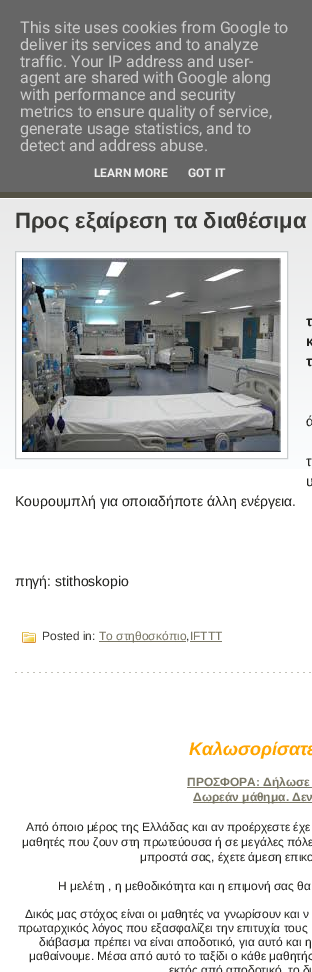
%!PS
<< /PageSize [312 972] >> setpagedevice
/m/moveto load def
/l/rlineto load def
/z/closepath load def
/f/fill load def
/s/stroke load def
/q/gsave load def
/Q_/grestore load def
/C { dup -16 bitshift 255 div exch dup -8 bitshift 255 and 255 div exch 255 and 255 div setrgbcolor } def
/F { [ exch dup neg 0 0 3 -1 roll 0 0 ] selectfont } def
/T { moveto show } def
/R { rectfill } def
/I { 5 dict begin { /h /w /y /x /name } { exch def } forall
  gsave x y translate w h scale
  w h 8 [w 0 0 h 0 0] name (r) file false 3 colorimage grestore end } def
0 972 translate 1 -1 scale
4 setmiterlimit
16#545245 C
0 0 312 972 R
16#666666 C
0 0 312 192 R
/Roboto-Regular 16 F
16#CCCCCC C
(This site uses cookies from Google to) 20 33 T
(deliver its services and to analyze) 20 50 T
(traffic. Your IP address and user-) 20 67 T
(agent are shared with Google along) 20 83 T
(with performance and security) 20 100 T
(metrics to ensure quality of service,) 20 117 T
(generate usage statistics, and to) 20 134 T
(detect and address abuse.) 20 151 T
/Roboto-Bold 12 F
16#EEEEEE C
(LEARN MORE) 94 177 T
(GOT IT) 188 177 T
16#FFFFFF C
0 198 312 774 R
(1.rgb) 0 199 312 270 I
(2.rgb) 15 672 296 1 I
/LiberationSans-Bold 22 F
16#3A3A37 C
(Προς εξαίρεση τα διαθέσιμα) 15 228 T
16#FFFFFF C
15.5 251.5 m 272 0 l 0 207 l -272 0 l z q f Q_
16#CACECF C
s
(3.rgb) 22 258 259 194 I
/LiberationSans-Bold 14 F
16#242421 C
(τ) 306 326 T
(κ) 306 346 T
(τ) 306 366 T
/LiberationSans-Regular 14 F
306 426 m 3 0 32 (ά) widthshow
306 466 m 8 0 32 (τ) widthshow
306 486 m 1 0 32 (υ) widthshow
(Κουρουμπλή για οποιαδήποτε άλλη ενέργεια.) 15 506 T
(πηγή: stithoskopio) 15 586 T
(4.rgb) 22 632 14 11 I
/LiberationSans-Regular 12 F
16#3A3A37 C
(Posted in:) 42 640 T
16#7A7766 C
99 641 87 1 R
(Το στηθοσκόπιο IFTTT) 99 640 T
16#3A3A37 C
(,) 186 640 T
16#7A7766 C
190 641 32 1 R
/LiberationSans-BoldItalic 18 F
16#FFA500 C
(Καλωσορίσατε) 189 755 T
16#7A7766 C
187 787 125 1 R
/LiberationSans-Bold 12 F
(ΠΡΟΣΦΟΡΑ: Δήλωσε) 187 786 T
193 802 119 1 R
(Δωρεάν μάθημα. Δεν) 193 801 T
/LiberationSans-Regular 12 F
16#242421 C
(Από όποιο μέρος της Ελλάδας και αν προέρχεστε έχε) 26 831 T
(μαθητές που ζουν στη πρωτεύουσα ή σε μεγάλες πόλε) 22 846 T
(μπροστά σας, έχετε άμεση επικο) 140 861 T
(Η μελέτη , η μεθοδικότητα και η επιμονή σας θα) 58 890 T
(Δικός μας στόχος είναι οι μαθητές να γνωρίσουν και ν) 25 918 T
(πρωταρχικός λόγος που εξασφαλίζει την επιτυχία τους) 18 932 T
(διάβασμα πρέπει να είναι αποδοτικό, για αυτό και η) 39 946 T
(μαθαίνουμε. Μέσα από αυτό το ταξίδι ο κάθε μαθητής) 29 960 T
(εκτός από αποδοτικό, το δι) 169 974 T
showpage
